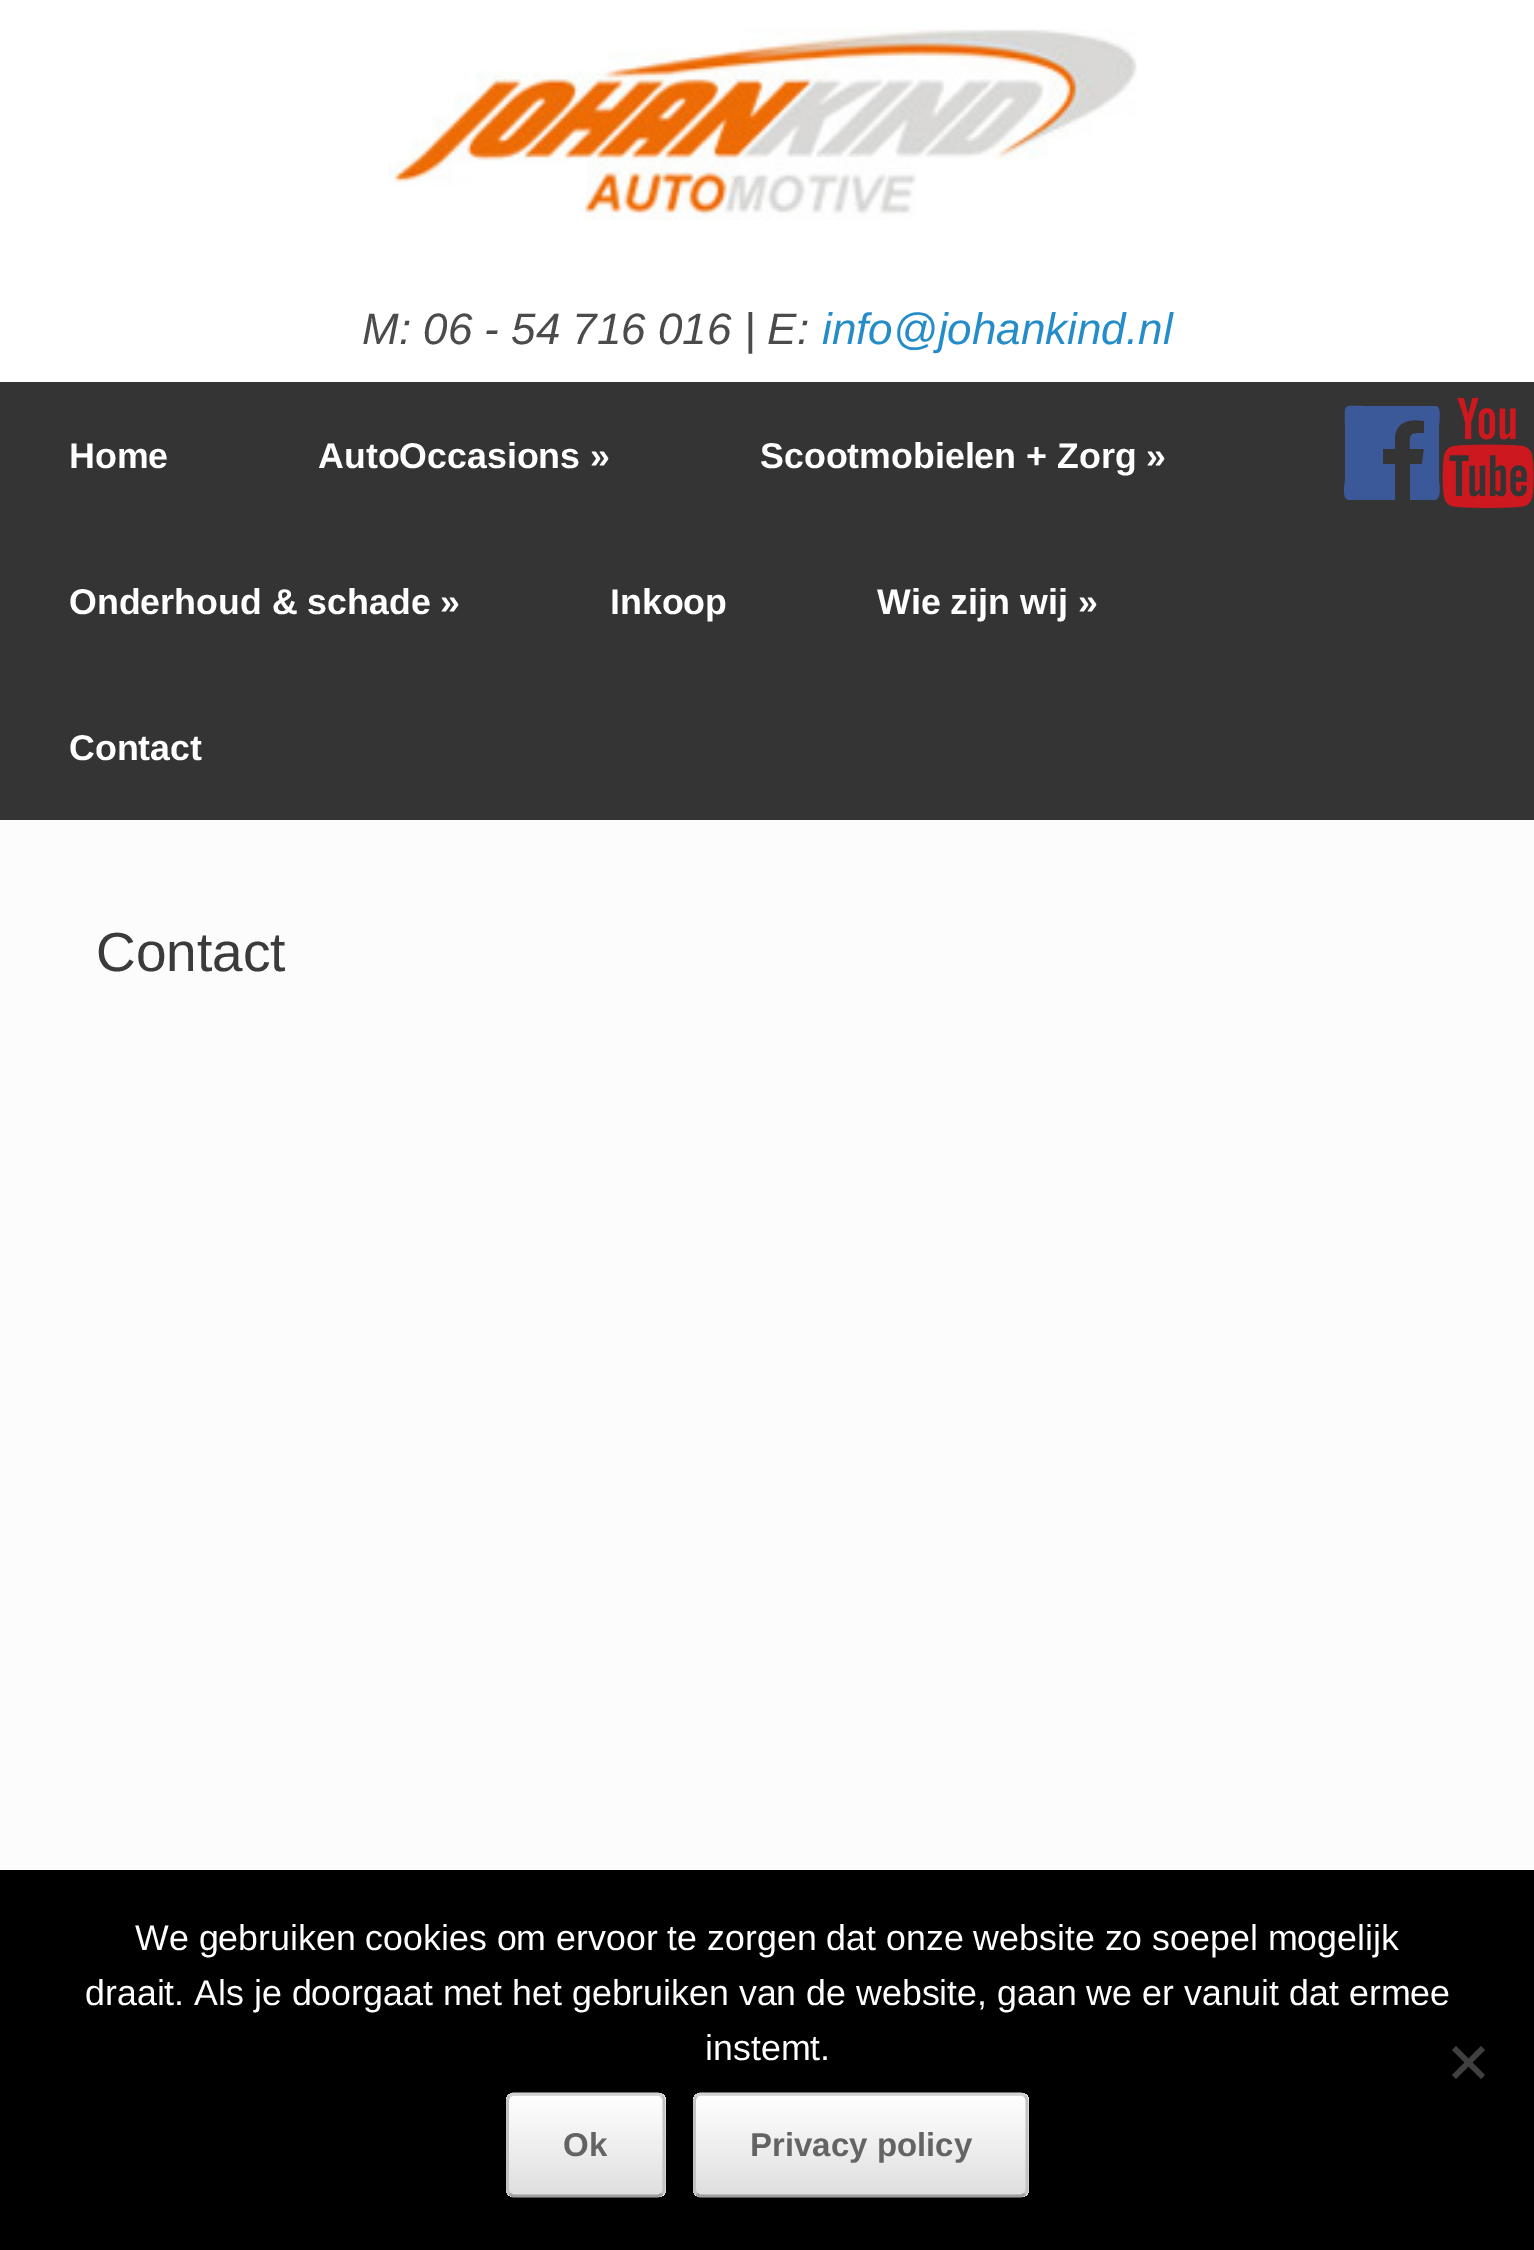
%!PS
<< /PageSize [1534 2250] >> setpagedevice
/m/moveto load def
/l/rlineto load def
/c/rcurveto load def
/z/closepath load def
/f/fill load def
/s/stroke load def
/q/gsave load def
/Q_/grestore load def
/w/setlinewidth load def
/C { dup -16 bitshift 255 div exch dup -8 bitshift 255 and 255 div exch 255 and 255 div setrgbcolor } def
/F { [ exch dup neg 0 0 3 -1 roll 0 0 ] selectfont } def
/T { moveto show } def
/R { rectfill } def
/Q { 5 dict begin { /r /h /w /y /x } { exch def } forall
  x r add y moveto x w add y 2 copy h add r arct x w add y h add x 1 index r arct
  x y h add x y r arct x y 2 copy exch w add exch r arct closepath end } def
/I { 5 dict begin { /h /w /y /x /name } { exch def } forall
  gsave x y translate w h scale
  w h 8 [w 0 0 h 0 0] name (r) file false 3 colorimage grestore end } def
0 2250 translate 1 -1 scale
4 setmiterlimit
16#FFFFFF C
0 0 1534 2250 R
(1.rgb) 388 27 749 193 I
/LiberationSans-Italic 44 F
16#4B4B4B C
(M: 06 - 54 716 016 | E:) 362 344 T
16#248CC8 C
(info@johankind.nl) 822 344 T
16#343434 C
0 382 1534 438 R
/LiberationSans-Bold 35.75 F
16#FFFFFF C
(Home) 69 468 T
(AutoOccasions ») 318 468 T
(Scootmobielen + Zorg ») 760 468 T
(Onderhoud & schade ») 69 614 T
(Inkoop) 610 614 T
(Wie zijn wij ») 877 614 T
(Contact) 69 760 T
16#3B5998 C
1434 406 m 1 0 3 0 4 1 c 3 4 1 17 1 18 c 0 56 l 0 2 3 17 -4 19 c -25 0 l 0 -36 l 12 0 l 2 -15 l -14 0 l 0 -15 -2 -16 14 -16 c 0 -12 l -12 -2 -26 -1 -29 14 c 0 14 l -12 0 l 0 15 l 12 0 l 0 36 l -46 0 l -8 -1 -4 -17 -4 -19 c 0 -56 l 0 -22 -3 -19 19 -19 c z f
(2.rgb) 1442 397 92 111 I
16#FCFCFC C
0 820 1534 1050 R
/LiberationSans-Regular 55 F
16#3B3B3B C
(Contact) 96 971 T
16#000000 C
0 1870 1534 380 R
/LiberationSans-Regular 35.75 F
16#FFFFFF C
(We gebruiken cookies om ervoor te zorgen dat onze website zo soepel mogelijk) 135 1950 T
(draait. Als je doorgaat met het gebruiken van de website, gaan we er vanuit dat ermee) 85 2005 T
(instemt.) 705 2060 T
16#404040 C
1481 2046 m 4 4 l -29 29 l -4 -4 l z f
1452 2050 m 4 -4 l 29 29 l -4 4 l z f
q
506 2093 160 104 8 Q clip newpath
q 506 2093 m 160 0 l 0 3 l -160 0 l z clip newpath
<< /ShadingType 2 /ColorSpace /DeviceRGB /Coords [509 2096 509 1997] /Extend [true true] /Function << /FunctionType 2 /Domain [0 1] /C0 [.875 .875 .875] /C1 [1 1 1] /N 1 >> >> shfill Q_
q 506 2096 m 160 0 l 0 99 l -160 0 l z clip newpath
<< /ShadingType 2 /ColorSpace /DeviceRGB /Coords [509 2195 509 2096] /Extend [true true] /Function << /FunctionType 2 /Domain [0 1] /C0 [.875 .875 .875] /C1 [1 1 1] /N 1 >> >> shfill Q_
q 506 2195 m 160 0 l 0 2 l -160 0 l z clip newpath
<< /ShadingType 2 /ColorSpace /DeviceRGB /Coords [509 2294 509 2195] /Extend [true true] /Function << /FunctionType 2 /Domain [0 1] /C0 [.875 .875 .875] /C1 [1 1 1] /N 1 >> >> shfill Q_
Q_
16#D2D2D2 C
2.8 w
509.5 2096 m 1 -1 3 -2 4.5 -2 c 143 0 l 2 0 4 1 5 2 c s
16#C3C3C3 C
662 2096 m 1.5 1.5 2 3 2 5 c 0 88 l 0 2 -.5 3.5 -2 5 c s
16#9F9F9F C
662 2194 m -1 1 -3 2 -5 2 c -143 0 l -1.5 0 -3.5 -1 -4.5 -2 c s
16#C3C3C3 C
509.5 2194 m -1.5 -1.5 -2 -3 -2 -5 c 0 -88 l 0 -2 .5 -3.5 2 -5 c s
/LiberationSans-Bold 33 F
16#646464 C
(Ok) 563 2156 T
q
693 2093 336 104 8 Q clip newpath
q 693 2093 m 336 0 l 0 3 l -336 0 l z clip newpath
<< /ShadingType 2 /ColorSpace /DeviceRGB /Coords [696 2096 696 1997] /Extend [true true] /Function << /FunctionType 2 /Domain [0 1] /C0 [.875 .875 .875] /C1 [1 1 1] /N 1 >> >> shfill Q_
q 693 2096 m 336 0 l 0 99 l -336 0 l z clip newpath
<< /ShadingType 2 /ColorSpace /DeviceRGB /Coords [696 2195 696 2096] /Extend [true true] /Function << /FunctionType 2 /Domain [0 1] /C0 [.875 .875 .875] /C1 [1 1 1] /N 1 >> >> shfill Q_
q 693 2195 m 336 0 l 0 2 l -336 0 l z clip newpath
<< /ShadingType 2 /ColorSpace /DeviceRGB /Coords [696 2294 696 2195] /Extend [true true] /Function << /FunctionType 2 /Domain [0 1] /C0 [.875 .875 .875] /C1 [1 1 1] /N 1 >> >> shfill Q_
Q_
16#D2D2D2 C
696.5 2096 m 1 -1 3 -2 4.5 -2 c 319 0 l 2 0 4 1 5 2 c s
16#C3C3C3 C
1025 2096 m 1.5 1.5 2 3 2 5 c 0 88 l 0 2 -.5 3.5 -2 5 c s
16#9F9F9F C
1025 2194 m -1 1 -3 2 -5 2 c -319 0 l -1.5 0 -3.5 -1 -4.5 -2 c s
16#C3C3C3 C
696.5 2194 m -1.5 -1.5 -2 -3 -2 -5 c 0 -88 l 0 -2 .5 -3.5 2 -5 c s
16#646464 C
(Privacy policy) 750 2156 T
showpage
